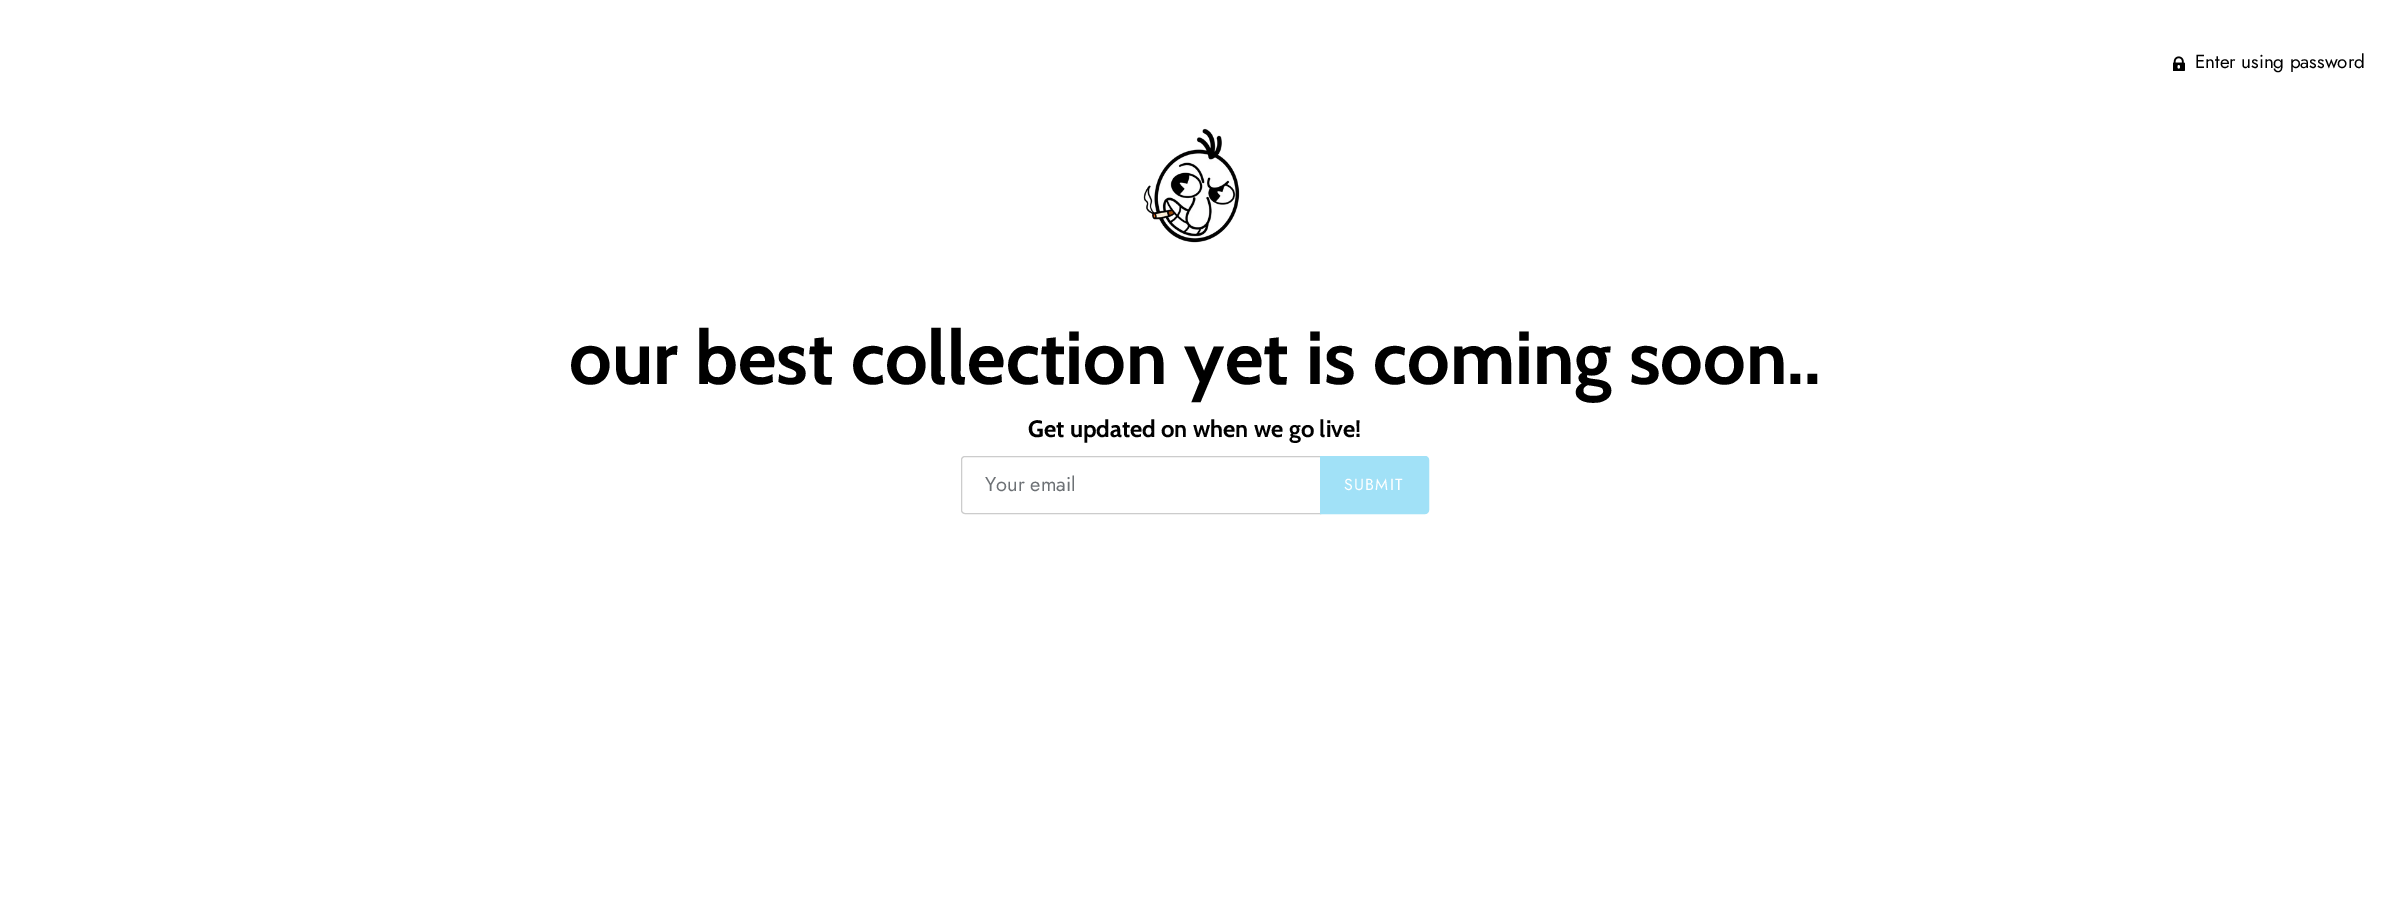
%!PS
<< /PageSize [2389 898] >> setpagedevice
/m/moveto load def
/l/rlineto load def
/c/rcurveto load def
/z/closepath load def
/f/fill load def
/s/stroke load def
/q/gsave load def
/Q_/grestore load def
/C { dup -16 bitshift 255 div exch dup -8 bitshift 255 and 255 div exch 255 and 255 div setrgbcolor } def
/F { [ exch dup neg 0 0 3 -1 roll 0 0 ] selectfont } def
/T { moveto show } def
/R { rectfill } def
/I { 5 dict begin { /h /w /y /x /name } { exch def } forall
  gsave x y translate w h scale
  w h 8 [w 0 0 h 0 0] name (r) file false 3 colorimage grestore end } def
0 898 translate 1 -1 scale
4 setmiterlimit
16#FFFFFF C
0 0 2389 898 R
(1.rgb) 2173 56 12 15 I
/Jost-Regular 18.75 F
16#000000 C
(Enter using password) 2195 68 T
(2.rgb) 1143 128 97 115 I
/Cabin-Bold 75 F
(our best collection yet is coming soon..) 569 384 T
/Cabin-Bold 23.75 F
(Get updated on when we go live!) 1028 437 T
16#CCCCCC C
965 456.5 m 355.5 0 l 0 57 l -355.5 0 l -2 0 -3.5 -1.5 -3.5 -3.5 c 0 -50 l 0 -2 1.5 -3.5 3.5 -3.5 c z s
/Jost-Regular 20 F
16#6D7175 C
(Your email) 985 491 T
16#A1E1F7 C
1320.5 456.5 m 104.5 0 l 2 0 3.5 1.5 3.5 3.5 c 0 50 l 0 2 -1.5 3.5 -3.5 3.5 c -104.5 0 l z q f Q_
s
/Jost-Regular 16 F
16#FFFFFF C
1344 490 m 1.25 0 (SUBMIT) ashow
showpage
